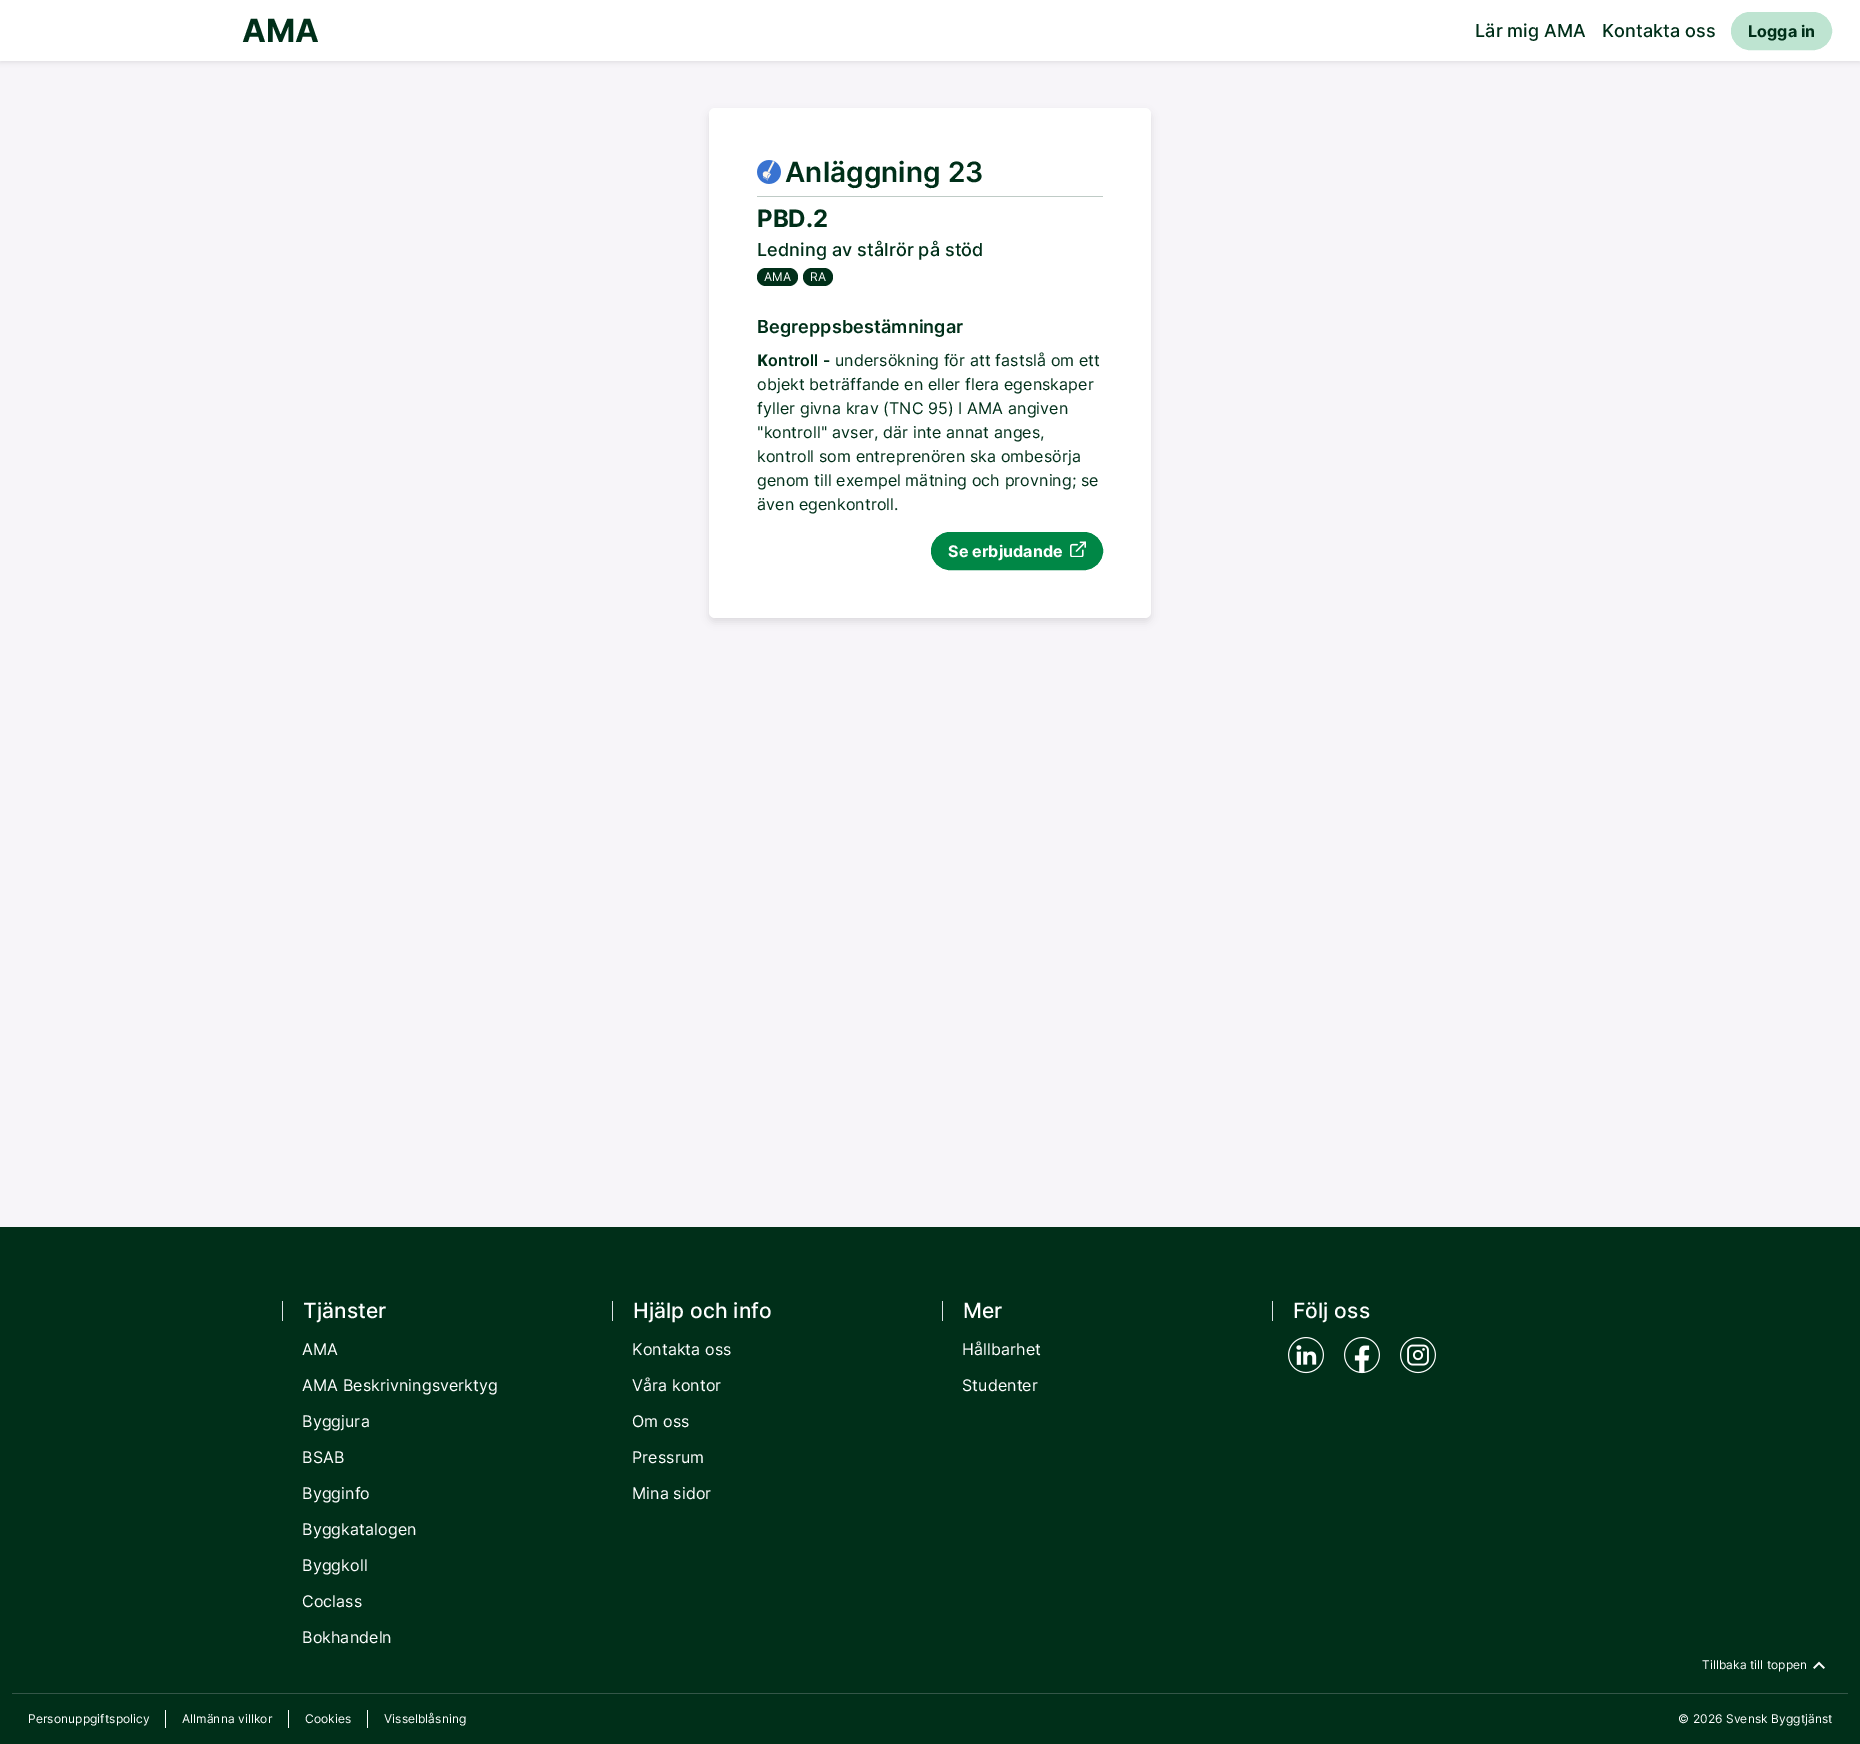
%!PS
<< /PageSize [1860 1744] /PageUsesTransparency true >> setpagedevice
/m/moveto load def
/f/fill load def
/s/stroke load def
/q/gsave load def
/Q_/grestore load def
/C { dup -16 bitshift 255 div exch dup -8 bitshift 255 and 255 div exch 255 and 255 div setrgbcolor } def
/F { [ exch dup neg 0 0 3 -1 roll 0 0 ] selectfont } def
/T { moveto show } def
/R { rectfill } def
/A { dup .setfillconstantalpha .setstrokeconstantalpha } def
/Q { 5 dict begin { /r /h /w /y /x } { exch def } forall
  x r add y moveto x w add y 2 copy h add r arct x w add y h add x 1 index r arct
  x y h add x y r arct x y 2 copy exch w add exch r arct closepath end } def
/S { 12 dict begin { /a /b /q /h /w /y /x } { exch def } forall gsave /was 0 def
  9 -2 -9 { dup b mul 4 div /e exch def 1 sub .425 mul 2.718 exch exp 1 add a .99 .min exch div /now exch def
    1 1 now sub 1 was sub div sub A /was now def
    w h .min e 2 mul add 0 gt { x e sub y e sub w e 2 mul add h e 2 mul add
      q e add b .6 mul add w h .min 2 div e add .min 0 .max Q fill } if } for grestore end } def
/I { 5 dict begin { /h /w /y /x /name } { exch def } forall
  gsave x y translate w h scale
  w h 8 [w 0 0 h 0 0] name (r) file false 3 colorimage grestore end } def
0 .pushpdf14devicefilter
0 1744 translate 1 -1 scale
4 setmiterlimit
16#F7F5F9 C
0 0 1860 1744 R
16#000000 C
0 2 1860 61 0 2 .07 S
16#FFFFFF C
0 0 1860 61 R
/Inter-Bold 32 F
16#002F19 C
(AMA) 242 42 T
/Inter-Medium 18 F
1475 37 m .1 0 (Lär mig AMA) ashow
1602 37 m .1 0 (Kontakta oss) ashow
16#BEE4D1 C
1731.5 12.5 100 37 18.5 Q q f Q_
s
/Inter-Bold 16 F
16#002F19 C
1748 37 m .1 0 (Logga in) ashow
16#000000 C
709 112 442 510 6 4 .1 S
16#FFFFFF C
709 108 442 510 6 Q f
(1.rgb) 757 160 24 24 I
/Inter-SemiBold 28 F
16#002F19 C
785 182 m .1 0 (Anläggning 23) ashow
16#BFCBC6 C
757 196 346 1 R
/Inter-Bold 24 F
16#002F19 C
(PBD.2) 757 227 T
/Inter-Medium 18 F
757 256 m .1 0 (Ledning av stålrör på stöd) ashow
757 268 41 18 9 Q f
/Inter-Regular 12 F
16#FFFFFF C
764 281 m .1 0 (AMA) ashow
16#002F19 C
803 268 30 18 9 Q f
16#FFFFFF C
810 281 m .1 0 (RA) ashow
/Inter-SemiBold 18 F
16#002F19 C
757 333 m .1 0 (Begreppsbestämningar) ashow
/NotoSans-ExtraBold 16 F
757 366 m .1 0 (K) ashow
/Inter-SemiBold 16 F
768 366 m .1 0 (ontroll -) ashow
/Inter-Regular 16 F
835 366 m .1 0 (undersökning för att fastslå om ett) ashow
757 390 m .1 0 (objekt beträffande en eller flera egenskaper) ashow
757 414 m .1 0 (fyller givna krav \(TNC 95\) I AMA angiven) ashow
757 438 m .1 0 ("kontroll" avser, där inte annat anges,) ashow
757 462 m .1 0 (kontroll som entreprenören ska ombesörja) ashow
757 486 m .1 0 (genom till exempel mätning och provning; se) ashow
757 510 m .1 0 (även egenkontroll.) ashow
16#008746 C
931.5 532.5 171 37 18.5 Q q f Q_
s
/Inter-Bold 16 F
16#FFFFFF C
948 557 m .1 0 (Se erbjudande) ashow
(2.rgb) 1070 541 16 16 I
16#002F19 C
0 1227 1860 517 R
16#DEE2E6 C
282 1301 1 20 R
/Inter-Medium 21 F
16#FFFFFF C
303 1318 m .1 0 (Tjänster) ashow
/Inter-Regular 16 F
302 1355 m .1 0 (AMA) ashow
302 1391 m .1 0 (AMA Beskrivningsverktyg) ashow
302 1427 m .1 0 (Byggjura) ashow
302 1463 m .1 0 (BSAB) ashow
302 1499 m .1 0 (Bygginfo) ashow
302 1535 m .1 0 (Byggkatalogen) ashow
302 1571 m .1 0 (Byggkoll) ashow
302 1607 m .1 0 (Coclass) ashow
302 1643 m .1 0 (Bokhandeln) ashow
16#DEE2E6 C
612 1301 1 20 R
/Inter-Medium 21 F
16#FFFFFF C
633 1318 m .1 0 (Hjälp och info) ashow
/Inter-Regular 16 F
632 1355 m .1 0 (Kontakta oss) ashow
632 1391 m .1 0 (Våra kontor) ashow
632 1427 m .1 0 (Om oss) ashow
632 1463 m .1 0 (Pressrum) ashow
632 1499 m .1 0 (Mina sidor) ashow
16#DEE2E6 C
942 1301 1 20 R
/Inter-Medium 21 F
16#FFFFFF C
963 1318 m .1 0 (Mer) ashow
/Inter-Regular 16 F
962 1355 m .1 0 (Hållbarhet) ashow
962 1391 m .1 0 (Studenter) ashow
16#DEE2E6 C
1272 1301 1 20 R
/Inter-Medium 21 F
16#FFFFFF C
1293 1318 m .1 0 (Följ oss) ashow
(3.rgb) 1288 1337 36 37 I
(4.rgb) 1344 1337 36 37 I
(5.rgb) 1400 1337 36 37 I
/Inter-Regular 12 F
1702 1669 m .1 0 (Tillbaka till toppen) ashow
(6.rgb) 1813 1661 12 8 I
16#345648 C
12 1693 1836 1 R
16#FFFFFF C
28 1723 m .1 0 (Personuppgiftspolicy) ashow
165 1710 1 18 R
182 1723 m .1 0 (Allmänna villkor) ashow
288 1710 1 18 R
305 1723 m .1 0 (Cookies) ashow
367 1710 1 18 R
384 1723 m .1 0 (Visselblåsning) ashow
1678 1723 m .1 0 (© 2026 Svensk Byggtjänst) ashow
.poppdf14devicefilter showpage
